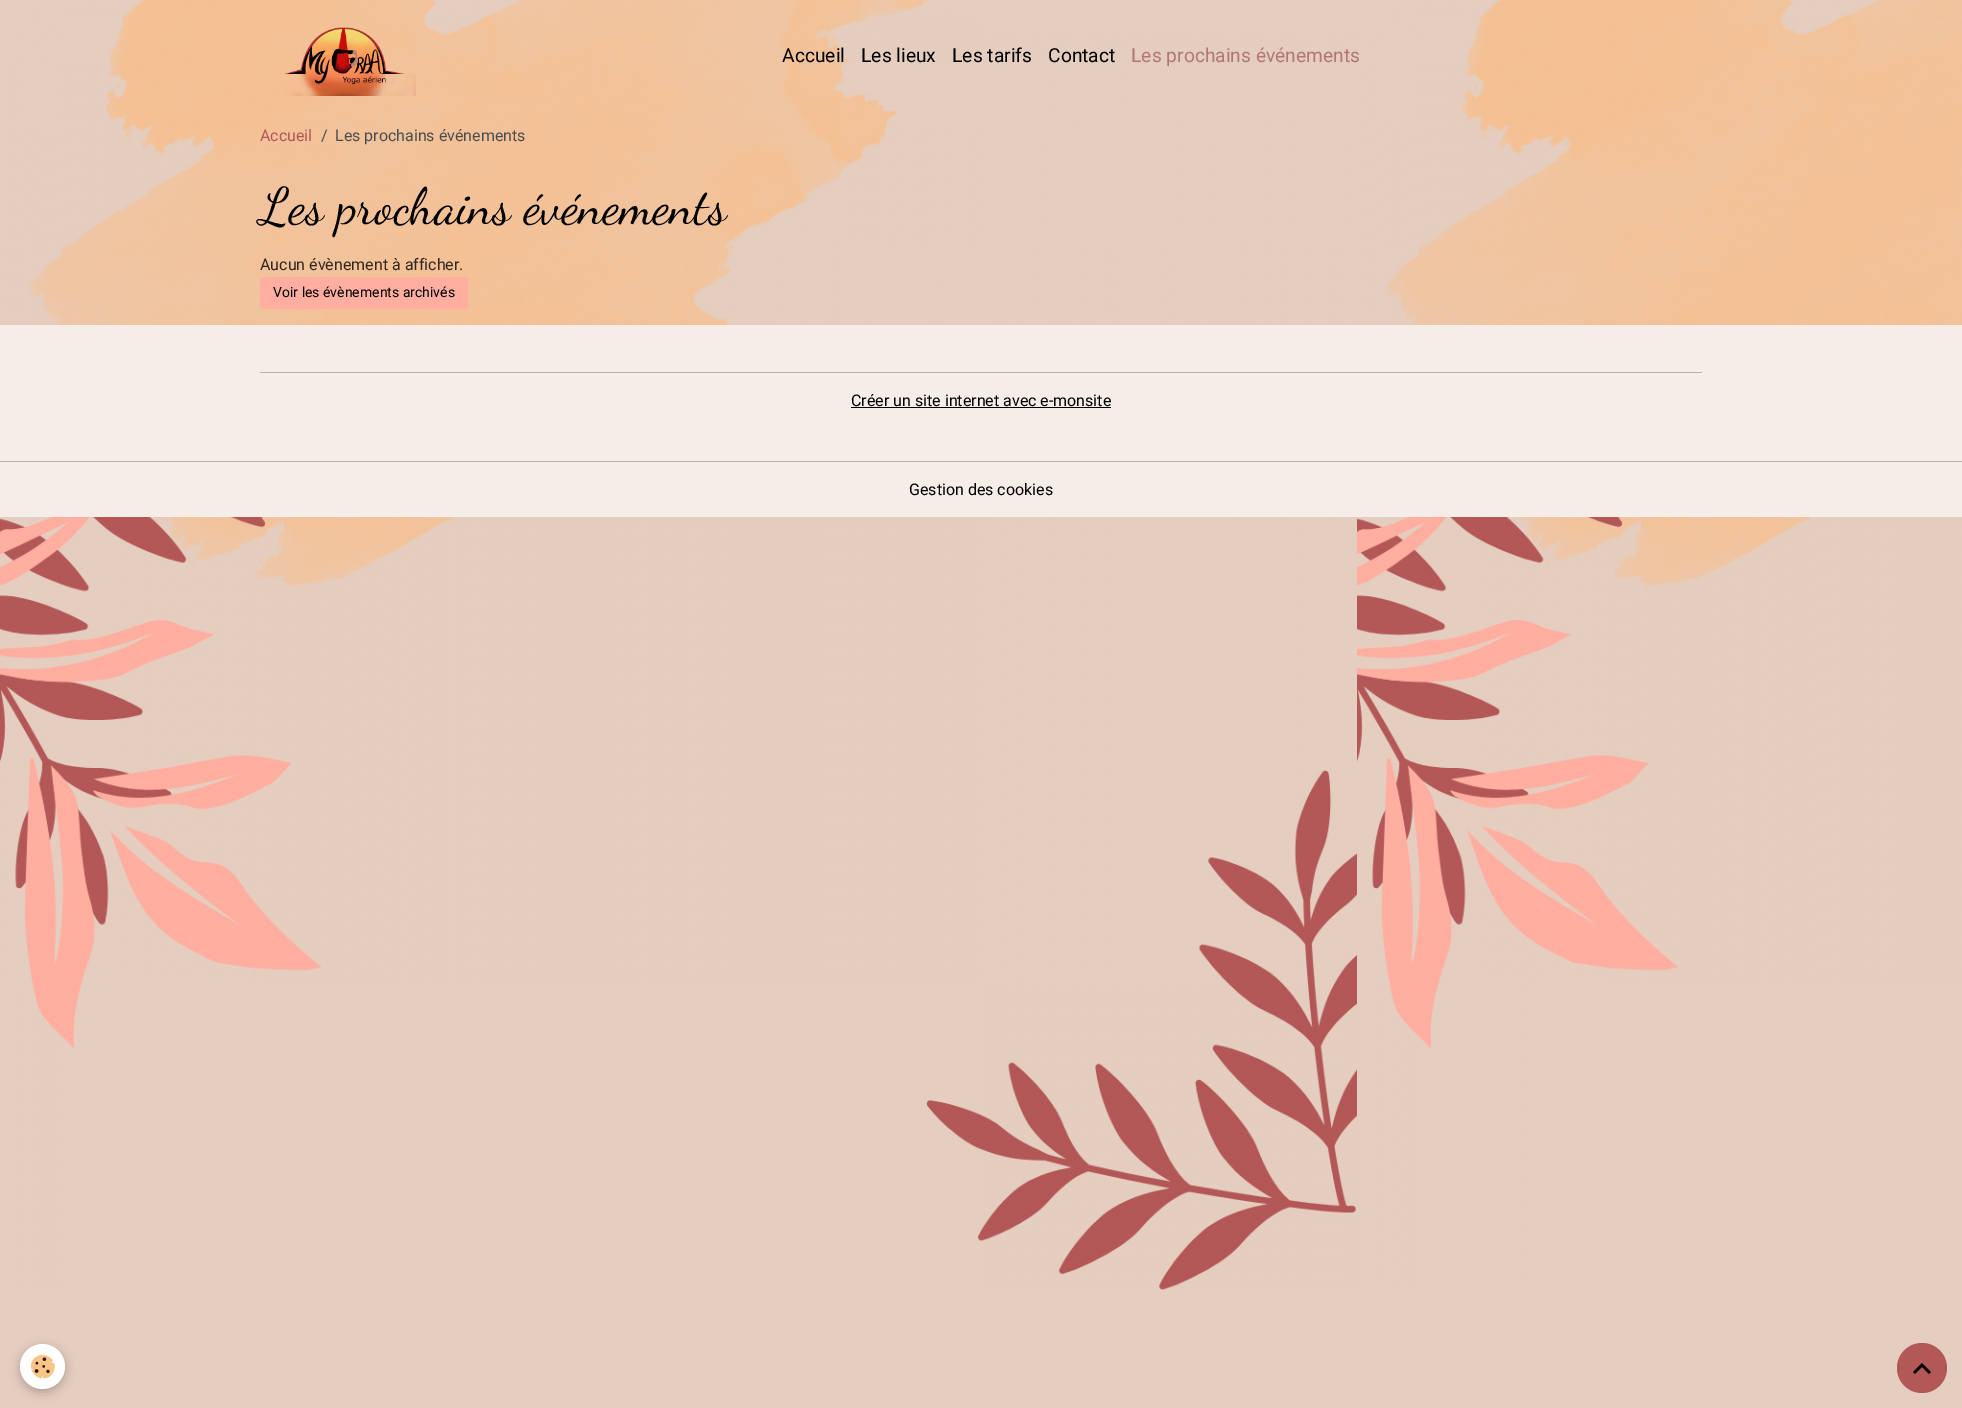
%!PS
<< /PageSize [1962 1408] /PageUsesTransparency true >> setpagedevice
/m/moveto load def
/l/rlineto load def
/z/closepath load def
/f/fill load def
/s/stroke load def
/q/gsave load def
/Q_/grestore load def
/C { dup -16 bitshift 255 div exch dup -8 bitshift 255 and 255 div exch 255 and 255 div setrgbcolor } def
/F { [ exch dup neg 0 0 3 -1 roll 0 0 ] selectfont } def
/T { moveto show } def
/R { rectfill } def
/A { dup .setfillconstantalpha .setstrokeconstantalpha } def
/O { newpath 0 360 arc closepath } def
/Q { 5 dict begin { /r /h /w /y /x } { exch def } forall
  x r add y moveto x w add y 2 copy h add r arct x w add y h add x 1 index r arct
  x y h add x y r arct x y 2 copy exch w add exch r arct closepath end } def
/S { 12 dict begin { /a /b /q /h /w /y /x } { exch def } forall gsave /was 0 def
  9 -2 -9 { dup b mul 4 div /e exch def 1 sub .425 mul 2.718 exch exp 1 add a .99 .min exch div /now exch def
    1 1 now sub 1 was sub div sub A /was now def
    w h .min e 2 mul add 0 gt { x e sub y e sub w e 2 mul add h e 2 mul add
      q e add b .6 mul add w h .min 2 div e add .min 0 .max Q fill } if } for grestore end } def
/I { 5 dict begin { /h /w /y /x /name } { exch def } forall
  gsave x y translate w h scale
  w h 8 [w 0 0 h 0 0] name (r) file false 3 colorimage grestore end } def
0 .pushpdf14devicefilter
0 1408 translate 1 -1 scale
4 setmiterlimit
16#E5CEBF C
0 0 1962 1408 R
(1.rgb) 0 0 1962 1290 I
(2.rgb) 284 27 132 69 I
/Roboto-Regular 19.25 F
16#000000 C
(Accueil) 782 62 T
(Les lieux) 861 62 T
(Les tarifs) 952 62 T
(Contact) 1048 62 T
16#B37575 C
(Les prochains événements) 1131 62 T
/Roboto-Regular 16 F
16#B35757 C
(Accueil) 260 141 T
16#4D4D4D C
(/) 321 141 T
(Les prochains événements) 335 141 T
/DancingScript-Regular 51.25 F
16#000000 C
(Les prochains événements) 260 223 T
/Roboto-Regular 16 F
16#31271F C
(Aucun évènement à afficher.) 260 270 T
16#FFAEA0 C
260.5 277.5 207 31 3.5 Q q f Q_
s
/Roboto-Regular 14 F
16#000000 C
(Voir les évènements archivés) 273 297 T
16#F7EDE8 C
0 325 1962 192 R
16#B3B3B3 C
260 372 1442 1 R
/Roboto-Regular 16 F
16#000000 C
(Créer un site internet avec e-monsite) 851 406 T
851 407 260 1 R
16#B3B3B3 C
0 461 1962 1 R
16#000000 C
(Gestion des cookies) 909 495 T
20 1347 45 45 22.5 5 .24 S
16#FFFFFF C
42.5 1366.5 22.5 O f
(3.rgb) 30 1354 25 25 I
16#B35757 C
1922 1368 25 O f
16#000000 C
1922 1363 m 9 9 l -2 2 l -7 -7 l -7 7 l -2 -2 l z f
.poppdf14devicefilter showpage
